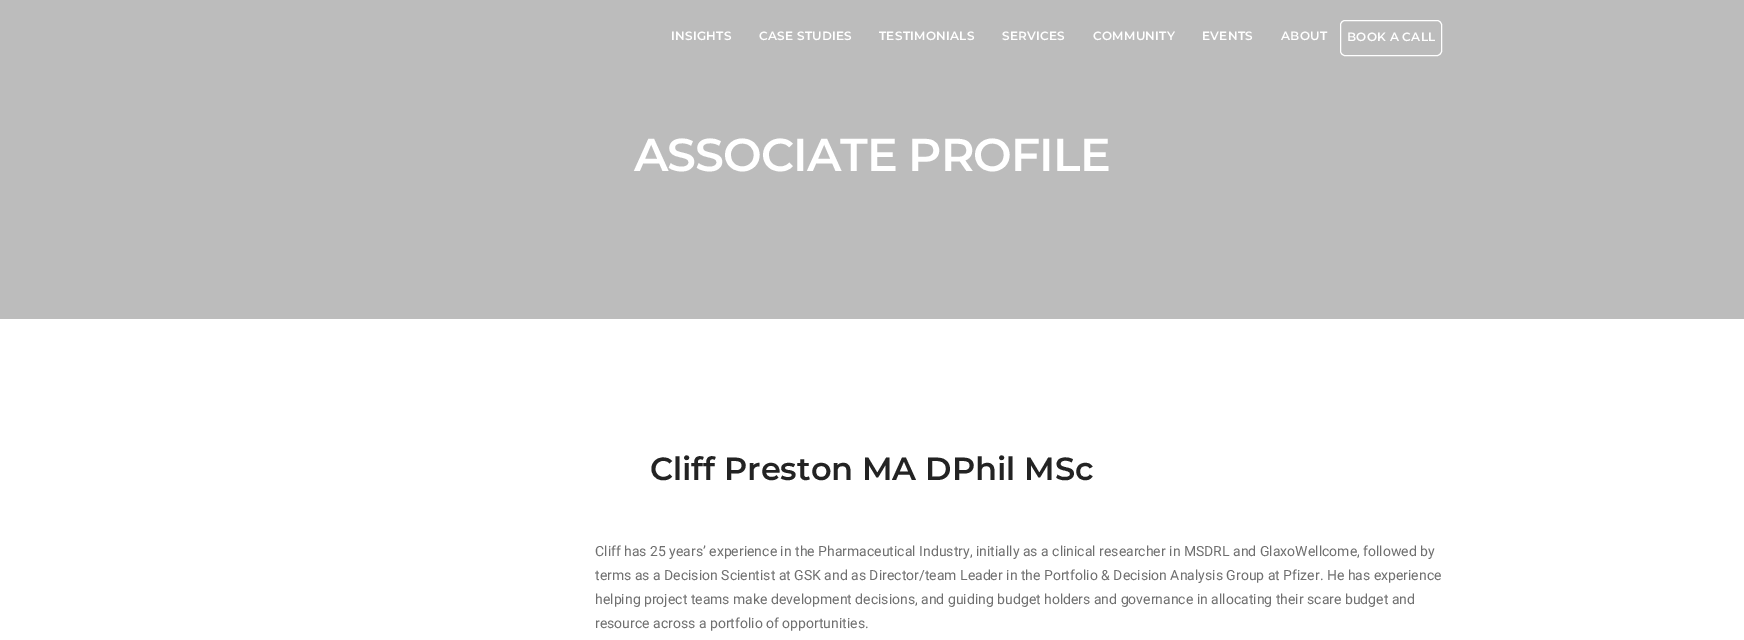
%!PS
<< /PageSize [1744 640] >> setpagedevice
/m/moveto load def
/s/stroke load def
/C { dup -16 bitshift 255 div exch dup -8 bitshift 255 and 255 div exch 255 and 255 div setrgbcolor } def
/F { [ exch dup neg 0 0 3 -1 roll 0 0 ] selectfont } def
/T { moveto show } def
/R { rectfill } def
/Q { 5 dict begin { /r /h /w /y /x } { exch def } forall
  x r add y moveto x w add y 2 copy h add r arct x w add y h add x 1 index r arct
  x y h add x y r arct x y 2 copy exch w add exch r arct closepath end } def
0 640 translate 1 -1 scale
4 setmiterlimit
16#FFFFFF C
0 0 1744 640 R
16#BCBCBC C
0 0 1744 319 R
/Montserrat-SemiBold 12 F
16#FFFFFF C
671 40 m .25 0 (INSIGHTS) ashow
759 40 m .25 0 (CASE STUDIES) ashow
879 40 m .25 0 (TESTIMONIALS) ashow
1002 40 m .25 0 (SERVICES) ashow
1093 40 m .25 0 (COMMUNITY) ashow
1202 40 m .25 0 (EVENTS) ashow
1281 40 m .25 0 (ABOUT) ashow
1340.5 20.5 101 35 4.5 Q s
1347 41 m .25 0 (BOOK A CALL) ashow
/Montserrat-SemiBold 46 F
634 171 m -1 0 (ASSOCIATE PROFILE) ashow
/Montserrat-SemiBold 32 F
16#232323 C
(Cliff Preston MA DPhil MSc) 650 480 T
/Roboto-Regular 14 F
16#6F6F6F C
(Cliff has 25 years’ experience in the Pharmaceutical Industry, initially as a clinical researcher in MSDRL and GlaxoWellcome, followed by) 595 556 T
(terms as a Decision Scientist at GSK and as Director/team Leader in the Portfolio & Decision Analysis Group at Pfizer. He has experience) 595 580 T
(helping project teams make development decisions, and guiding budget holders and governance in allocating their scare budget and) 595 604 T
(resource across a portfolio of opportunities.) 595 628 T
showpage
